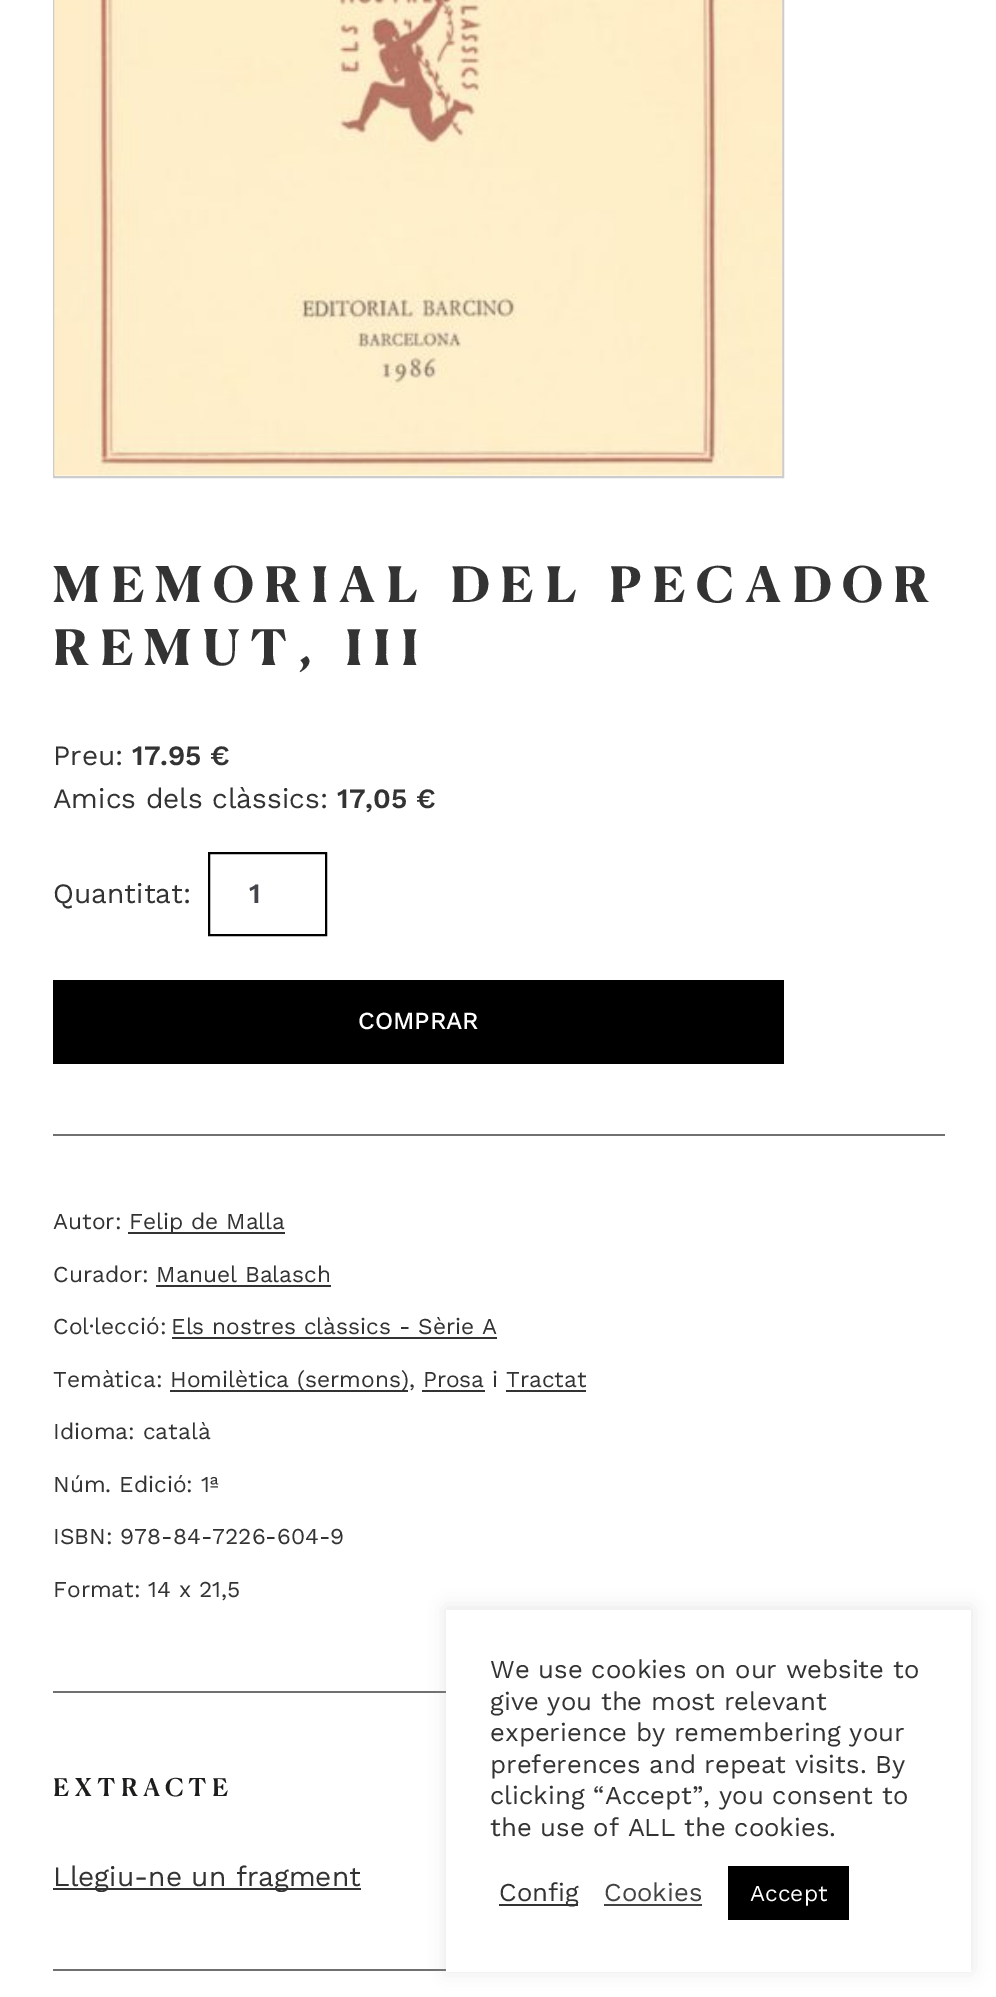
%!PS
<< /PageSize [996 1997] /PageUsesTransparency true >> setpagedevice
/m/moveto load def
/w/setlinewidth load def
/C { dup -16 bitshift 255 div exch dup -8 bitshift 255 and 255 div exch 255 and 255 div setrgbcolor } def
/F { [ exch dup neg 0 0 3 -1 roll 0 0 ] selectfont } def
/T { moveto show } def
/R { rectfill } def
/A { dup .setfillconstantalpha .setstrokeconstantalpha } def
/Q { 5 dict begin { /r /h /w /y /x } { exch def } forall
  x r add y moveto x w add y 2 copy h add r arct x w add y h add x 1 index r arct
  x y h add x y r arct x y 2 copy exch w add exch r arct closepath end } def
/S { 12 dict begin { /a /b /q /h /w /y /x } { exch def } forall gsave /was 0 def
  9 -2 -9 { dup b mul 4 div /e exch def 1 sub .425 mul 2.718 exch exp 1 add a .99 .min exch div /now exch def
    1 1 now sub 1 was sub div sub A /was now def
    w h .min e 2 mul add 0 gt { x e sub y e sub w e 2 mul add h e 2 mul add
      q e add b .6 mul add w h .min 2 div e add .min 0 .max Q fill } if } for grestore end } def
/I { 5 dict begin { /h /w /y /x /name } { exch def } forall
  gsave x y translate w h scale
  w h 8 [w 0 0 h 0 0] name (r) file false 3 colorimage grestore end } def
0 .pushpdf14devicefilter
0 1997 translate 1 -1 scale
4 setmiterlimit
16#FFFFFF C
0 0 996 1997 R
16#CCCCCC C
2 w
54 -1 729 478 rectstroke
(1.rgb) 54 0 729 476 I
/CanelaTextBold-Bold 49 F
16#333333 C
53 602 m 10.5 0 (MEMORIAL DEL PECADOR) ashow
53 665 m 10.5 0 (REMUT, III) ashow
/WorkSans-Regular 28 F
(Preu:) 53 765 T
/WorkSans-SemiBold 28 F
(17.95 €) 132 765 T
/WorkSans-Regular 28 F
(Amics dels clàssics:) 53 808 T
/WorkSans-SemiBold 28 F
(17,05 €) 337 808 T
/WorkSans-Regular 28 F
(Quantitat:) 53 903 T
16#000000 C
209 853 117 82 rectstroke
/WorkSans-SemiBold 28 F
16#43454B C
(1) 249 903 T
16#000000 C
53 980 731 84 R
/WorkSans-Medium 24.5 F
16#FFFFFF C
(COMPRAR) 358 1029 T
16#707070 C
53 1134 892 2 R
/WorkSans-Regular 22.75 F
16#333333 C
(Autor:) 53 1229 T
128 1232 157 2 R
(Felip de Malla) 129 1229 T
(Curador: Manuel Balasch) 53 1282 T
156 1285 175 2 R
(Col·lecció:) 53 1334 T
(Els nostres clàssics - Sèrie A) 171 1334 T
172 1337 325 2 R
(Temàtica:) 53 1387 T
170 1390 238 2 R
(Homilètica \(sermons\), Prosa i Tractat) 170 1387 T
422 1390 63 2 R
506 1390 80 2 R
(Idioma: català) 53 1439 T
(Núm. Edició: 1ª) 53 1492 T
(ISBN: 978-84-7226-604-9) 53 1544 T
(Format: 14 x 21,5) 53 1597 T
16#707070 C
53 1691 393 2 R
/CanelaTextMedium-Medium 24.5 F
16#1D1D1B C
53 1796 m 4.75 0 (EXTRACTE) ashow
16#333333 C
53 1888 308 2 R
/WorkSans-Regular 28 F
(Llegiu-ne un fragment) 53 1886 T
16#707070 C
53 1969 393 2 R
16#ACABAB C
446 1608 525 363 0 9 .3 S
16#FFFFFF C
446 1610 525 362 R
/WorkSans-Regular 25.7 F
16#333333 C
(We use cookies on our website to) 490 1678 T
(give you the most relevant) 490 1710 T
(experience by remembering your) 490 1741 T
(preferences and repeat visits. By) 490 1773 T
(clicking “Accept”, you consent to) 490 1804 T
(the use of ALL the cookies.) 490 1836 T
499 1904 79 2 R
(Config) 499 1901 T
16#444444 C
(Cookies) 604 1901 T
604 1904 98 2 R
16#000000 C
728 1866 121 54 R
/WorkSans-Regular 22.75 F
16#FFFFFF C
(Accept) 750 1901 T
.poppdf14devicefilter showpage
